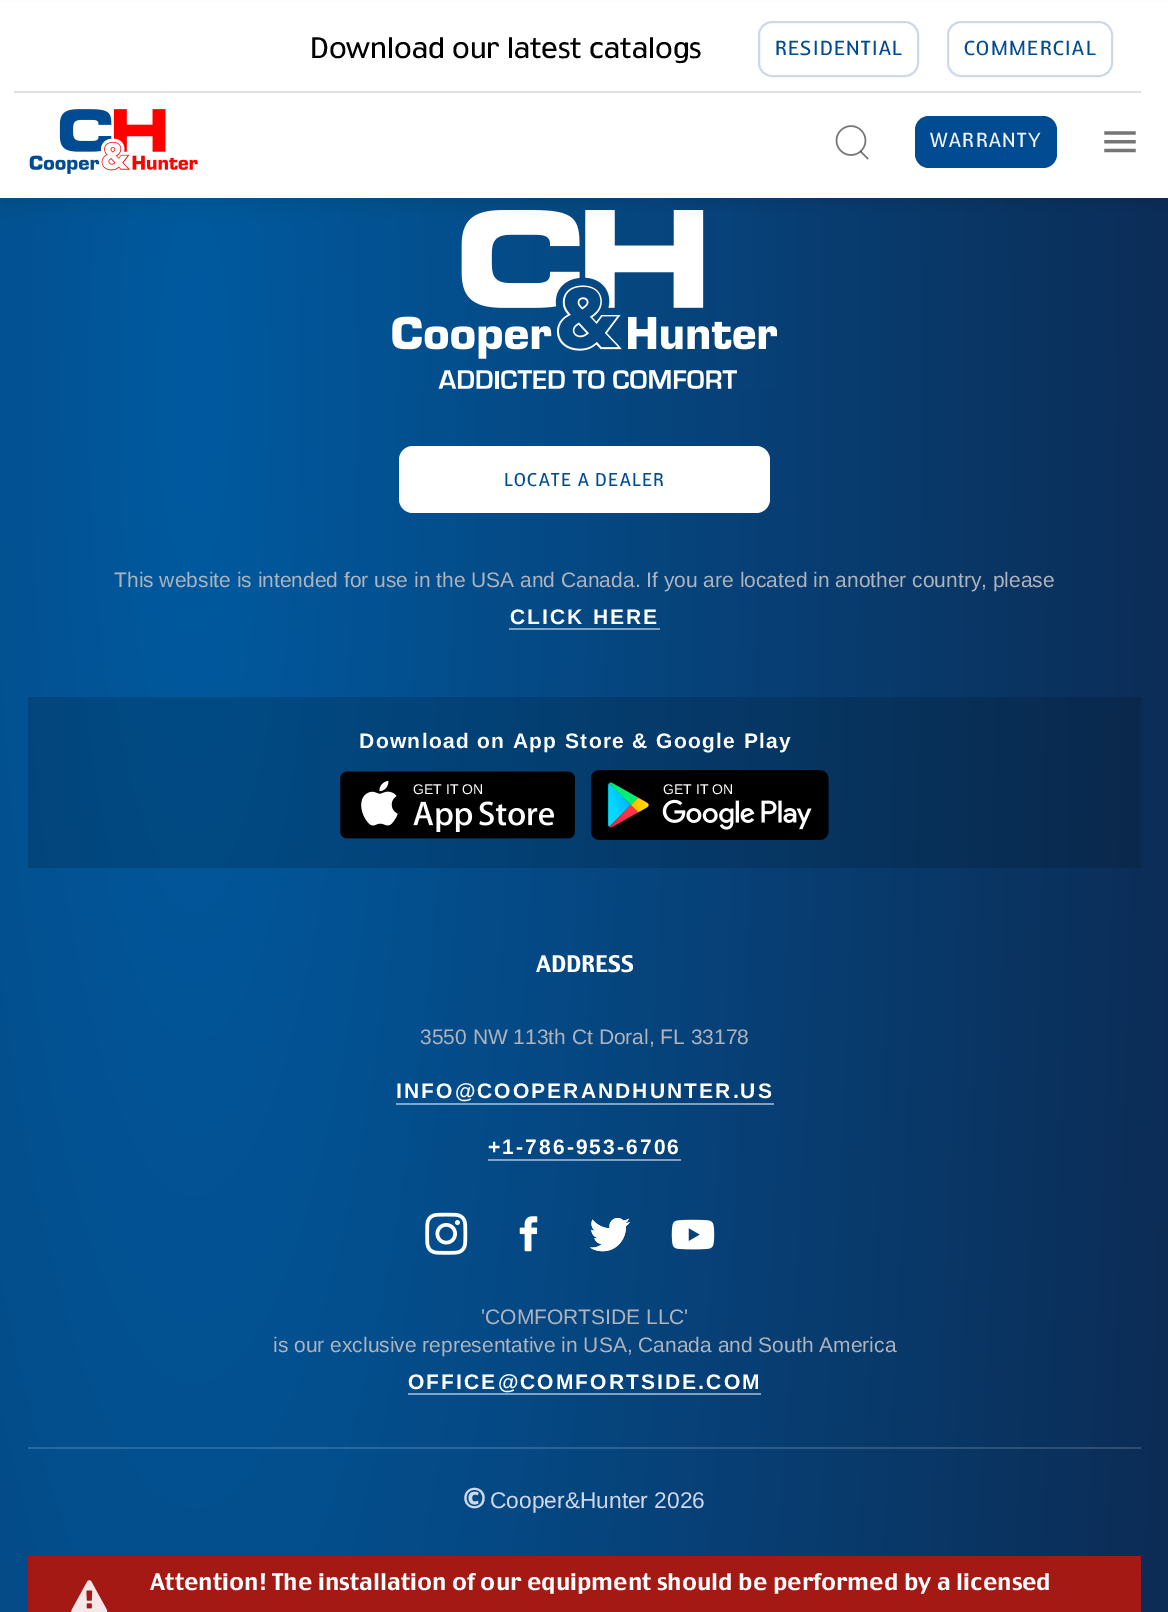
%!PS
<< /PageSize [1168 1612] /PageUsesTransparency true >> setpagedevice
/m/moveto load def
/l/rlineto load def
/z/closepath load def
/f/fill load def
/s/stroke load def
/q/gsave load def
/Q_/grestore load def
/w/setlinewidth load def
/C { dup -16 bitshift 255 div exch dup -8 bitshift 255 and 255 div exch 255 and 255 div setrgbcolor } def
/F { [ exch dup neg 0 0 3 -1 roll 0 0 ] selectfont } def
/T { moveto show } def
/R { rectfill } def
/A { dup .setfillconstantalpha .setstrokeconstantalpha } def
/Q { 5 dict begin { /r /h /w /y /x } { exch def } forall
  x r add y moveto x w add y 2 copy h add r arct x w add y h add x 1 index r arct
  x y h add x y r arct x y 2 copy exch w add exch r arct closepath end } def
/S { 12 dict begin { /a /b /q /h /w /y /x } { exch def } forall gsave /was 0 def
  9 -2 -9 { dup b mul 4 div /e exch def 1 sub .425 mul 2.718 exch exp 1 add a .99 .min exch div /now exch def
    1 1 now sub 1 was sub div sub A /was now def
    w h .min e 2 mul add 0 gt { x e sub y e sub w e 2 mul add h e 2 mul add
      q e add b .6 mul add w h .min 2 div e add .min 0 .max Q fill } if } for grestore end } def
/I { 5 dict begin { /h /w /y /x /name } { exch def } forall
  gsave x y translate w h scale
  w h 8 [w 0 0 h 0 0] name (r) file false 3 colorimage grestore end } def
0 .pushpdf14devicefilter
0 1612 translate 1 -1 scale
4 setmiterlimit
16#FFFFFF C
0 0 1168 1612 R
q 0 198 m 1168 0 l 0 1414 l -1168 0 l z clip newpath 194 390 translate 1205 5964 scale
<< /ShadingType 3 /ColorSpace /DeviceRGB /Coords [0 0 0 0 0 1] /Extend [true true] /Function << /FunctionType 2 /Domain [0 1] /C0 [0 .353 .627] /C1 [.059 .137 .275] /N 1 >> >> shfill Q_
(4.rgb) 392 210 385 179 I
16#000000 C
0 9 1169 198 0 7 .07 S
16#FFFFFF C
0 2 1168 196 R
/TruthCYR-Regular 28 F
16#000000 C
(Download our latest catalogs) 310 58 T
16#CFD8EB C
2 w
759 22 159 54 13 Q s
/TruthCYR-Regular 19.25 F
16#004B91 C
775 55 m 1.5 0 (RESIDENTIAL) ashow
16#CFD8EB C
948 22 164 54 13 Q s
16#004B91 C
964 55 m 1.5 0 (COMMERCIAL) ashow
16#E0E0E0 C
14 91 1127 2 R
(1.rgb) 29 109 169 65 I
(2.rgb) 835 125 34 35 I
16#004B91 C
915 116 142 52 14 Q f
16#F0F4FD C
930 147 m 1.5 0 (WARRANTY) ashow
(3.rgb) 1104 131 32 22 I
q 408 1393 m 353 0 l 0 2 l -353 0 l z clip newpath 194 390 translate 1205 5964 scale
<< /ShadingType 3 /ColorSpace /DeviceRGB /Coords [0 0 0 0 0 1] /Extend [true true] /Function << /FunctionType 2 /Domain [0 1] /C0 [.502 .678 .816] /C1 [.529 .569 .639] /N 1 >> >> shfill Q_
q 488 1159 m 193 0 l 0 2 l -193 0 l z clip newpath 194 390 translate 1205 5964 scale
<< /ShadingType 3 /ColorSpace /DeviceRGB /Coords [0 0 0 0 0 1] /Extend [true true] /Function << /FunctionType 2 /Domain [0 1] /C0 [.502 .678 .816] /C1 [.529 .569 .639] /N 1 >> >> shfill Q_
q 396 1103 m 378 0 l 0 2 l -378 0 l z clip newpath 194 390 translate 1205 5964 scale
<< /ShadingType 3 /ColorSpace /DeviceRGB /Coords [0 0 0 0 0 1] /Extend [true true] /Function << /FunctionType 2 /Domain [0 1] /C0 [.502 .678 .816] /C1 [.529 .569 .639] /N 1 >> >> shfill Q_
q 28 697 m 1113 0 l 0 171 l -1113 0 l z clip newpath 194 390 translate 1205 5964 scale
<< /ShadingType 3 /ColorSpace /DeviceRGB /Coords [0 0 0 0 0 1] /Extend [true true] /Function << /FunctionType 2 /Domain [0 1] /C0 [0 .302 .533] /C1 [.051 .118 .235] /N 1 >> >> shfill Q_
q 509 628 m 151 0 l 0 2 l -151 0 l z clip newpath 194 390 translate 1205 5964 scale
<< /ShadingType 3 /ColorSpace /DeviceRGB /Coords [0 0 0 0 0 1] /Extend [true true] /Function << /FunctionType 2 /Domain [0 1] /C0 [.502 .678 .816] /C1 [.529 .569 .639] /N 1 >> >> shfill Q_
q 28 1447 m 1113 0 l 0 2 l -1113 0 l z clip newpath 194 390 translate 1205 5964 scale
<< /ShadingType 3 /ColorSpace /DeviceRGB /Coords [0 0 0 0 0 1] /Extend [true true] /Function << /FunctionType 2 /Domain [0 1] /C0 [.149 .451 .682] /C1 [.2 .267 .384] /N 1 >> >> shfill Q_
16#FFFFFF C
399 446 371 67 14 Q f
/TruthCYR-Regular 17.5 F
16#004B91 C
504 486 m 1.4 0 (LOCATE A DEALER) ashow
/LiberationSans-Regular 21 F
16#AFB3BC C
(This website is intended for use in the USA and Canada. If you are located in another country, please) 114 587 T
/LiberationSans-Bold 21 F
16#FFFFFF C
510 624 m 2.1 0 (CLICK HERE) ashow
359 748 m 1.35 0 (Download on App Store & Google Play) ashow
(5.rgb) 340 771 235 68 I
/LiberationSans-Regular 14 F
(GET IT ON) 413 794 T
(6.rgb) 591 770 238 70 I
(GET IT ON) 663 794 T
/TruthCYR-Medium 22.75 F
(ADDRESS) 536 972 T
/LiberationSans-Regular 21 F
16#AFB3BC C
(3550 NW 113th Ct Doral, FL 33178) 420 1044 T
/LiberationSans-Bold 21 F
16#FFFFFF C
396 1098 m 2.1 0 (INFO@COOPERANDHUNTER.US) ashow
488 1154 m 2.1 0 (+1-786-953-6706) ashow
(7.rgb) 425 1212 43 43 I
(8.rgb) 519 1216 19 36 I
(9.rgb) 589 1218 41 34 I
(10.rgb) 671 1219 44 31 I
/LiberationSans-Regular 21 F
16#AFB3BC C
('COMFORTSIDE LLC') 481 1324 T
(is our exclusive representative in USA, Canada and South America) 273 1352 T
/LiberationSans-Bold 21 F
16#FFFFFF C
408 1389 m 2.1 0 (OFFICE@COMFORTSIDE.COM) ashow
/NotoSans-Black 28 F
16#CFD8EB C
(©) 463 1508 T
/LiberationSans-Regular 22.75 F
(Cooper&Hunter 2026) 490 1508 T
16#A51914 C
28 1556 1113 56 R
(11.rgb) 71 1580 37 32 I
/TruthCYR-Medium 22.75 F
16#FFFFFF C
(Attention! The installation of our equipment should be performed by a licensed) 150 1590 T
.poppdf14devicefilter showpage
